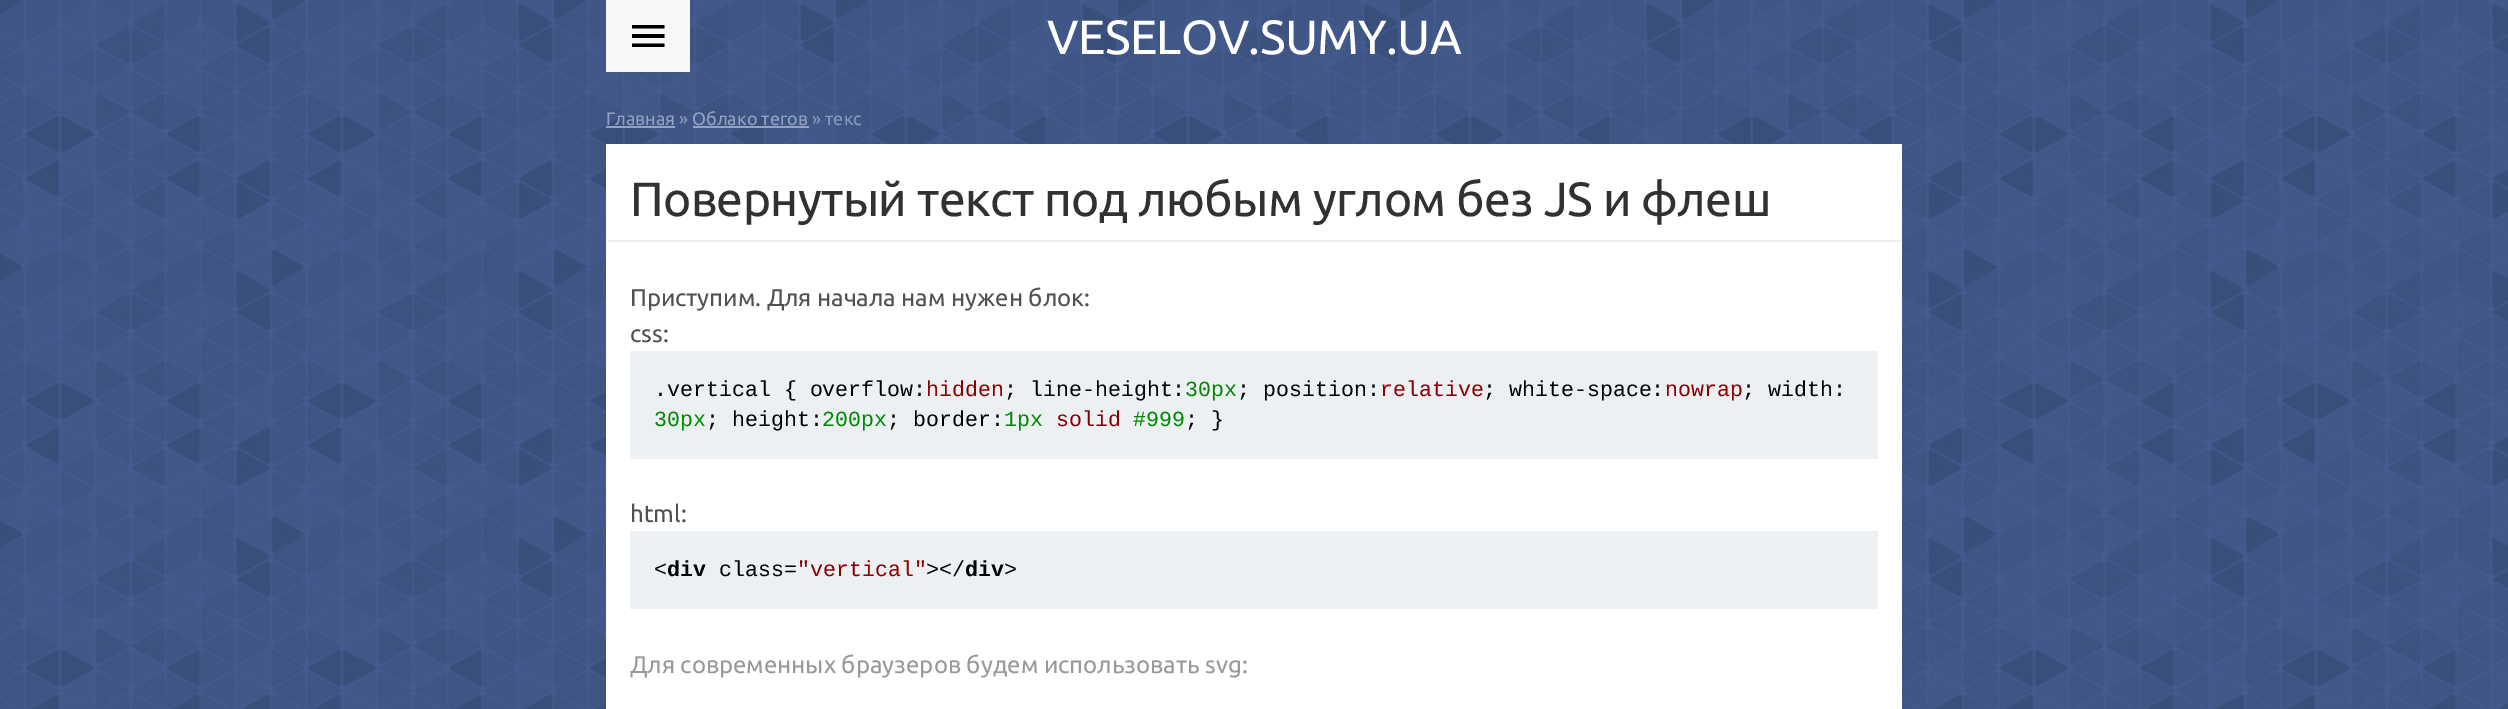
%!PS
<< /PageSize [2508 709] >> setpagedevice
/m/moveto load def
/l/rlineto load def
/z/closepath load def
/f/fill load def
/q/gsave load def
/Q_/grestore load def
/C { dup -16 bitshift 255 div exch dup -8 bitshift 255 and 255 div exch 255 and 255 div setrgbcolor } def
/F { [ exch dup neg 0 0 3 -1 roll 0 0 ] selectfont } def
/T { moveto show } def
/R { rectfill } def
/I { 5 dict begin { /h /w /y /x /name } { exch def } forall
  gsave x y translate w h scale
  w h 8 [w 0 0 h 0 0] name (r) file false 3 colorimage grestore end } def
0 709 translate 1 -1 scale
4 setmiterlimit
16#FFFFFF C
0 0 2508 709 R
(1.rgb) 0 0 2508 709 I
16#F7F7F7 C
606 0 84 72 R
q
632 20 33 33 rectclip
16#000000 C
631.5 47 m 33 0 l 0 -3.5 l -33 0 l z 631.5 38 m 33 0 l 0 -4 l -33 0 l z 631.5 25 m 0 3.5 l 33 0 l 0 -3.5 l z f
Q_
/Ubuntu-Regular 48 F
16#FFFFFF C
1047 54 m -.6 0 (VESELOV.SUMY.UA) ashow
/Ubuntu-Regular 18 F
16#94A3C2 C
(Главная) 606 125 T
606 126 69 2 R
16#8B9AB9 C
(») 679 125 T
16#94A3C2 C
(Облако тегов) 692 125 T
693 126 116 2 R
16#8B9AB9 C
(» текс) 812 125 T
16#FFFFFF C
606 144 1296 565 R
/Ubuntu-Regular 48 F
16#313131 C
630 216 m -.6 0 (Повернутый текст под любым углом без JS и флеш) ashow
16#EEEEEE C
608 240 1293 2 R
/Ubuntu-Regular 24 F
16#515151 C
(Приступим. Для начала нам нужен блок:) 630 306 T
(css:) 630 342 T
16#EDF0F3 C
630 351 1248 108 R
/LiberationMono-Regular 21.6 F
16#000000 C
(.vertical { overflow:) 654 396 T
16#880000 C
(hidden) 926 396 T
16#000000 C
(; line-height:) 1004 396 T
16#008800 C
(30px) 1185 396 T
16#000000 C
(; position:) 1237 396 T
16#880000 C
(relative) 1380 396 T
16#000000 C
(; white-space:) 1483 396 T
16#880000 C
(nowrap) 1665 396 T
16#000000 C
(; width:) 1742 396 T
16#008800 C
(30px) 654 426 T
16#000000 C
(; height:) 706 426 T
16#008800 C
(200px) 822 426 T
16#000000 C
(; border:) 887 426 T
16#008800 C
(1px) 1004 426 T
16#880000 C
(solid) 1056 426 T
16#008800 C
(#999) 1133 426 T
16#000000 C
(; }) 1185 426 T
/Ubuntu-Regular 24 F
16#515151 C
(html:) 630 522 T
16#EDF0F3 C
630 531 1248 78 R
/LiberationMono-Regular 21.6 F
16#000000 C
(<) 654 576 T
/LiberationMono-Bold 21.6 F
(div) 667 576 T
/LiberationMono-Regular 21.6 F
(class=) 719 576 T
16#880000 C
("vertical") 797 576 T
16#000000 C
(></) 926 576 T
/LiberationMono-Bold 21.6 F
(div) 965 576 T
/LiberationMono-Regular 21.6 F
(>) 1004 576 T
/Ubuntu-Regular 24 F
16#999999 C
(Для современных браузеров будем использовать svg:) 630 673 T
showpage
